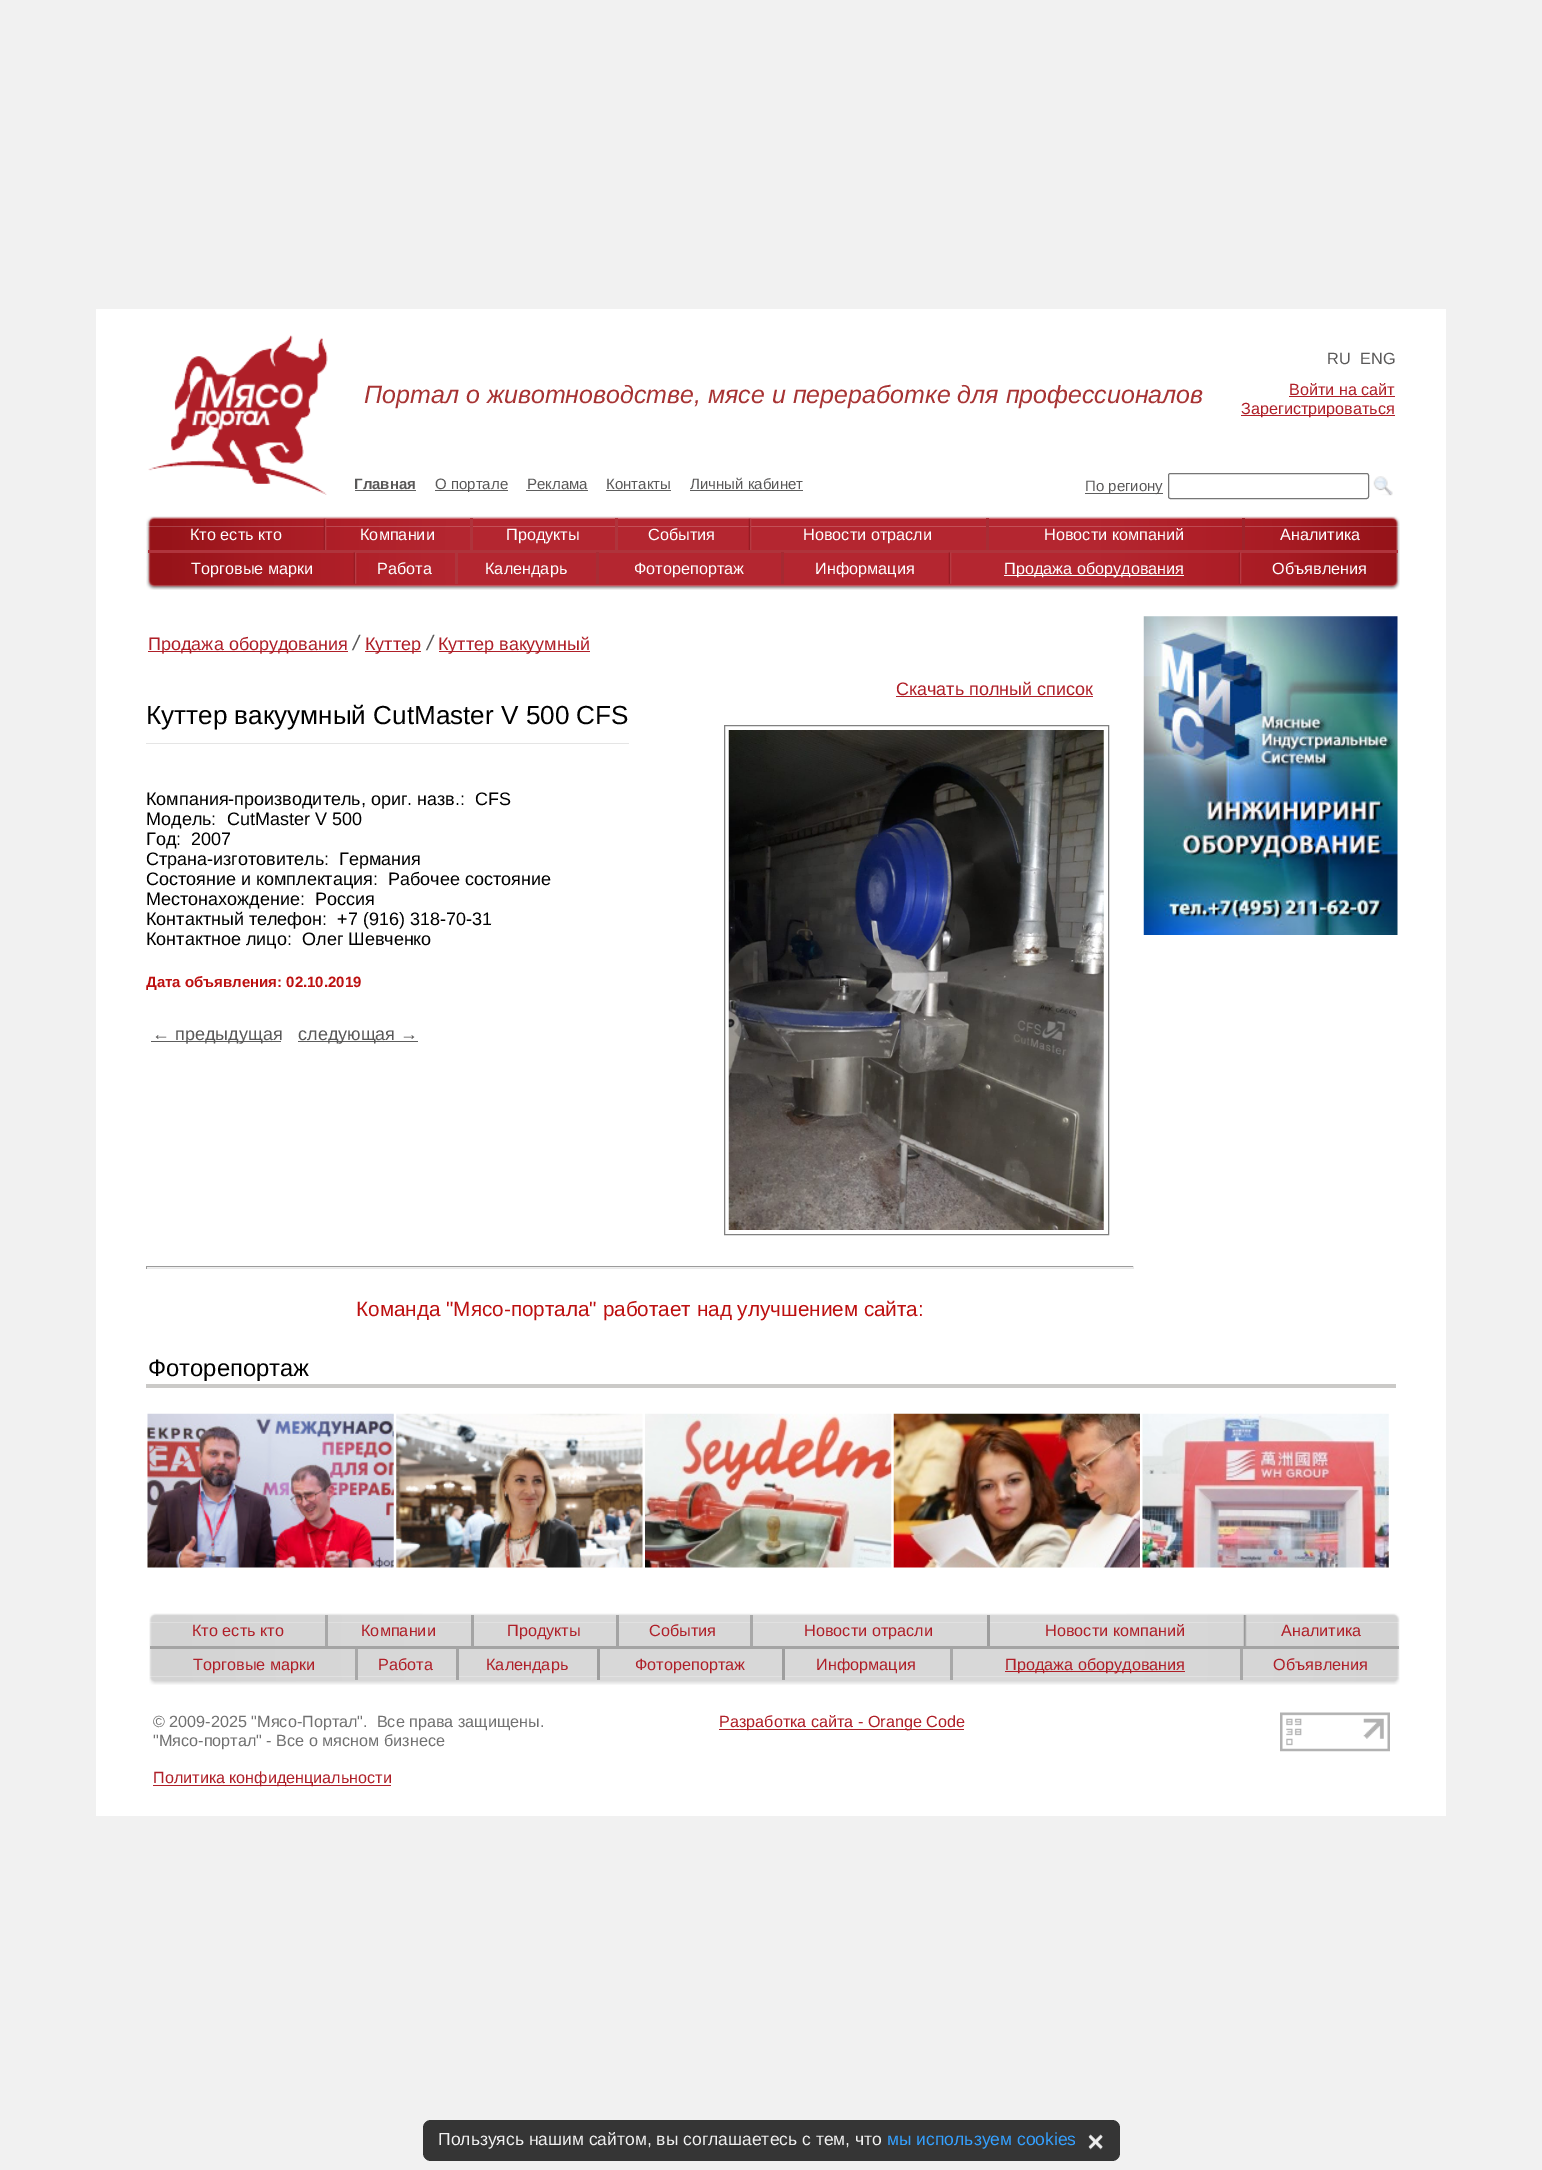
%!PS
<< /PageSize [1542 2170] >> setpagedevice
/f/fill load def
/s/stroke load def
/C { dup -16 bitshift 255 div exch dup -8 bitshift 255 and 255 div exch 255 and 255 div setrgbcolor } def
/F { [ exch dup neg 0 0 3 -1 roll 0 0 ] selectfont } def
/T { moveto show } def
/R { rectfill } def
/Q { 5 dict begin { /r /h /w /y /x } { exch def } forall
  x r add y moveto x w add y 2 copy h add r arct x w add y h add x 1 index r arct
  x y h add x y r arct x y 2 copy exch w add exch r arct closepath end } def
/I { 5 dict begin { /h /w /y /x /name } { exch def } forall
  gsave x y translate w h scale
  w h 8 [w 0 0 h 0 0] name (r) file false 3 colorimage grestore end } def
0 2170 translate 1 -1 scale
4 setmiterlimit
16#F1F1F1 C
0 0 1542 2170 R
16#FFFFFF C
96 309 1350 1507 R
(1.rgb) 148 335 180 160 I
/LiberationSans-Italic 25 F
16#A73333 C
(Портал о животноводстве, мясе и переработке для профессионалов) 364 403 T
/LiberationSans-Regular 16.25 F
16#595858 C
(RU) 1327 364 T
(ENG) 1360 364 T
/LiberationSans-Regular 16.2 F
16#AF1F28 C
(Войти на сайт) 1289 395 T
1289 396 106 1 R
1241 415 154 1 R
(Зарегистрироваться) 1241 414 T
/LiberationSans-Bold 15 F
16#595858 C
(Главная) 354 489 T
16#5D5D5D C
355 490 61 1 R
435 490 73 1 R
/LiberationSans-Regular 15 F
16#595858 C
(О портале) 435 489 T
(Реклама) 527 489 T
16#5D5D5D C
526 490 62 1 R
16#595858 C
(Контакты) 606 489 T
16#5D5D5D C
606 490 65 1 R
16#595858 C
(Личный кабинет) 690 489 T
16#5D5D5D C
690 490 113 1 R
1085 493 78 1 R
16#595858 C
(По региону) 1085 491 T
16#767676 C
1168.5 473.5 200 25 2 Q s
(2.rgb) 1373 476 20 20 I
(3.rgb) 146 516 1254 11 I
(4.rgb) 146 580 1254 10 I
(5.rgb) 146 526 1254 54 I
/LiberationSans-Regular 16.25 F
16#FFFFFF C
(Кто есть кто) 190 540 T
(6.rgb) 323 518 4 32 I
(Компании) 360 540 T
16#AF343C C
470 518 3 32 R
16#FFFFFF C
(Продукты) 506 540 T
16#AF343C C
615 518 3 32 R
16#FFFFFF C
(События) 648 540 T
(7.rgb) 748 518 4 32 I
(Новости отрасли) 803 540 T
16#A82D35 C
986 518 3 32 R
16#FFFFFF C
(Новости компаний) 1044 540 T
16#9E232B C
1242 518 3 32 R
16#FFFFFF C
(Аналитика) 1280 540 T
16#AF343C C
148 550 1250 3 R
16#FFFFFF C
(Торговые марки) 191 574 T
(8.rgb) 353 552 4 32 I
(Работа) 377 574 T
16#AF343C C
455 552 3 32 R
16#FFFFFF C
(Календарь) 485 574 T
16#A82D35 C
596 552 3 32 R
16#FFFFFF C
(Фоторепортаж) 634 574 T
16#A52A32 C
781 552 3 32 R
16#FFFFFF C
(Информация) 815 574 T
(9.rgb) 948 552 4 32 I
1004 575 180 1 R
(Продажа оборудования) 1004 574 T
(10.rgb) 1238 552 4 32 I
(Объявления) 1272 574 T
16#AF1F28 C
148 651 200 1 R
/LiberationSans-Regular 18 F
(Продажа оборудования) 148 650 T
/LiberationSans-Italic 21 F
16#595858 C
(/) 353 650 T
16#AF1F28 C
365 651 56 1 R
/LiberationSans-Regular 18 F
(Куттер) 365 650 T
/LiberationSans-Italic 21 F
16#595858 C
(/) 427 650 T
16#AF1F28 C
439 651 151 1 R
/LiberationSans-Regular 18 F
(Куттер вакуумный) 438 650 T
(Скачать полный список) 896 695 T
896 696 197 1 R
16#E5E5E5 C
146 743 483 1 R
/LiberationSans-Regular 26.1 F
16#000000 C
(Куттер вакуумный CutMaster V 500 CFS) 146 724 T
/LiberationSans-Regular 18 F
(Компания-производитель, ориг. назв.:) 146 805 T
(CFS) 475 805 T
(Модель:) 146 825 T
(CutMaster V 500) 227 825 T
(Год:) 146 845 T
(2007) 191 845 T
(Страна-изготовитель:) 146 865 T
(Германия) 339 865 T
(Состояние и комплектация:) 146 885 T
(Рабочее состояние) 388 885 T
(Местонахождение:) 146 905 T
(Россия) 315 905 T
(Контактный телефон:) 146 925 T
(+7 \(916\) 318-70-31) 337 925 T
(Контактное лицо:) 146 945 T
(Олег Шевченко) 302 945 T
/LiberationSans-Bold 15 F
16#BD1010 C
(Дата объявления: 02.10.2019) 146 987 T
16#5D5D5D C
151 1041 130 1 R
/LiberationSans-Regular 18 F
16#595858 C
(← предыдущая) 152 1040 T
16#5D5D5D C
298 1041 120 1 R
16#595858 C
(следующая →) 298 1040 T
16#808080 C
724.5 725.5 384 509 rectstroke
(11.rgb) 728 730 376 500 I
16#EFEFEF C
146 1267 988 1 R
16#9B9B9B C
146 1266 988 1 R
16#E9E9E9 C
1133 1266 1 3 R
146 1268 988 1 R
16#9B9B9B C
146 1266 1 3 R
/LiberationSans-Regular 20.7 F
16#BD1010 C
(Команда "Мясо-портала" работает над улучшением сайта:) 356 1316 T
(12.rgb) 1143 616 255 319 I
16#CBCAC8 C
146 1384 1250 4 R
/LiberationSans-Regular 23.75 F
16#000000 C
(Фоторепортаж) 148 1376 T
(13.rgb) 147 1413 247 155 I
(14.rgb) 396 1413 247 155 I
(15.rgb) 645 1413 247 155 I
(16.rgb) 893 1413 247 155 I
(17.rgb) 1142 1413 247 155 I
(18.rgb) 149 1613 1251 10 I
(19.rgb) 149 1676 1251 9 I
(20.rgb) 149 1622 1251 54 I
/LiberationSans-Regular 16.25 F
16#AF1F28 C
(Кто есть кто) 192 1636 T
16#A8A8A8 C
325 1615 3 32 R
16#AF1F28 C
(Компании) 361 1636 T
16#A4A4A4 C
471 1615 3 32 R
16#AF1F28 C
(Продукты) 507 1636 T
16#A4A4A4 C
616 1615 3 32 R
16#AF1F28 C
(События) 649 1636 T
16#A8A8A8 C
750 1615 3 32 R
16#AF1F28 C
(Новости отрасли) 804 1636 T
16#9E9E9E C
987 1615 3 32 R
16#AF1F28 C
(Новости компаний) 1045 1636 T
(21.rgb) 1243 1615 4 31 I
(Аналитика) 1281 1636 T
16#A4A4A4 C
150 1646 1249 3 R
16#AF1F28 C
(Торговые марки) 193 1670 T
16#A8A8A8 C
355 1649 3 31 R
16#AF1F28 C
(Работа) 378 1670 T
16#A4A4A4 C
456 1649 3 31 R
16#AF1F28 C
(Календарь) 486 1670 T
16#9E9E9E C
597 1649 3 31 R
16#AF1F28 C
(Фоторепортаж) 635 1670 T
16#9E9E9E C
782 1649 3 31 R
16#AF1F28 C
(Информация) 816 1670 T
16#A8A8A8 C
950 1649 3 31 R
16#AF1F28 C
1005 1671 180 1 R
(Продажа оборудования) 1005 1670 T
16#A8A8A8 C
1240 1649 3 31 R
16#AF1F28 C
(Объявления) 1273 1670 T
/LiberationSans-Regular 16.2 F
16#717171 C
(© 2009-2025 "Мясо-Портал".  Все права защищены.) 153 1727 T
("Мясо-портал" - Все о мясном бизнесе) 153 1746 T
16#AF1F28 C
153 1785 238 1 R
(Политика конфиденциальности) 153 1783 T
719 1729 245 1 R
(Разработка сайта - Orange Code) 719 1727 T
(22.rgb) 1280 1712 110 40 I
16#353535 C
423 2120 697 41 8 Q f
/LiberationSans-Regular 17.5 F
16#F1F1F1 C
(Пользуясь нашим сайтом, вы соглашаетесь с тем, что) 438 2145 T
16#34A0FF C
(мы используем cookies) 887 2145 T
(23.rgb) 1088 2134 15 16 I
showpage
